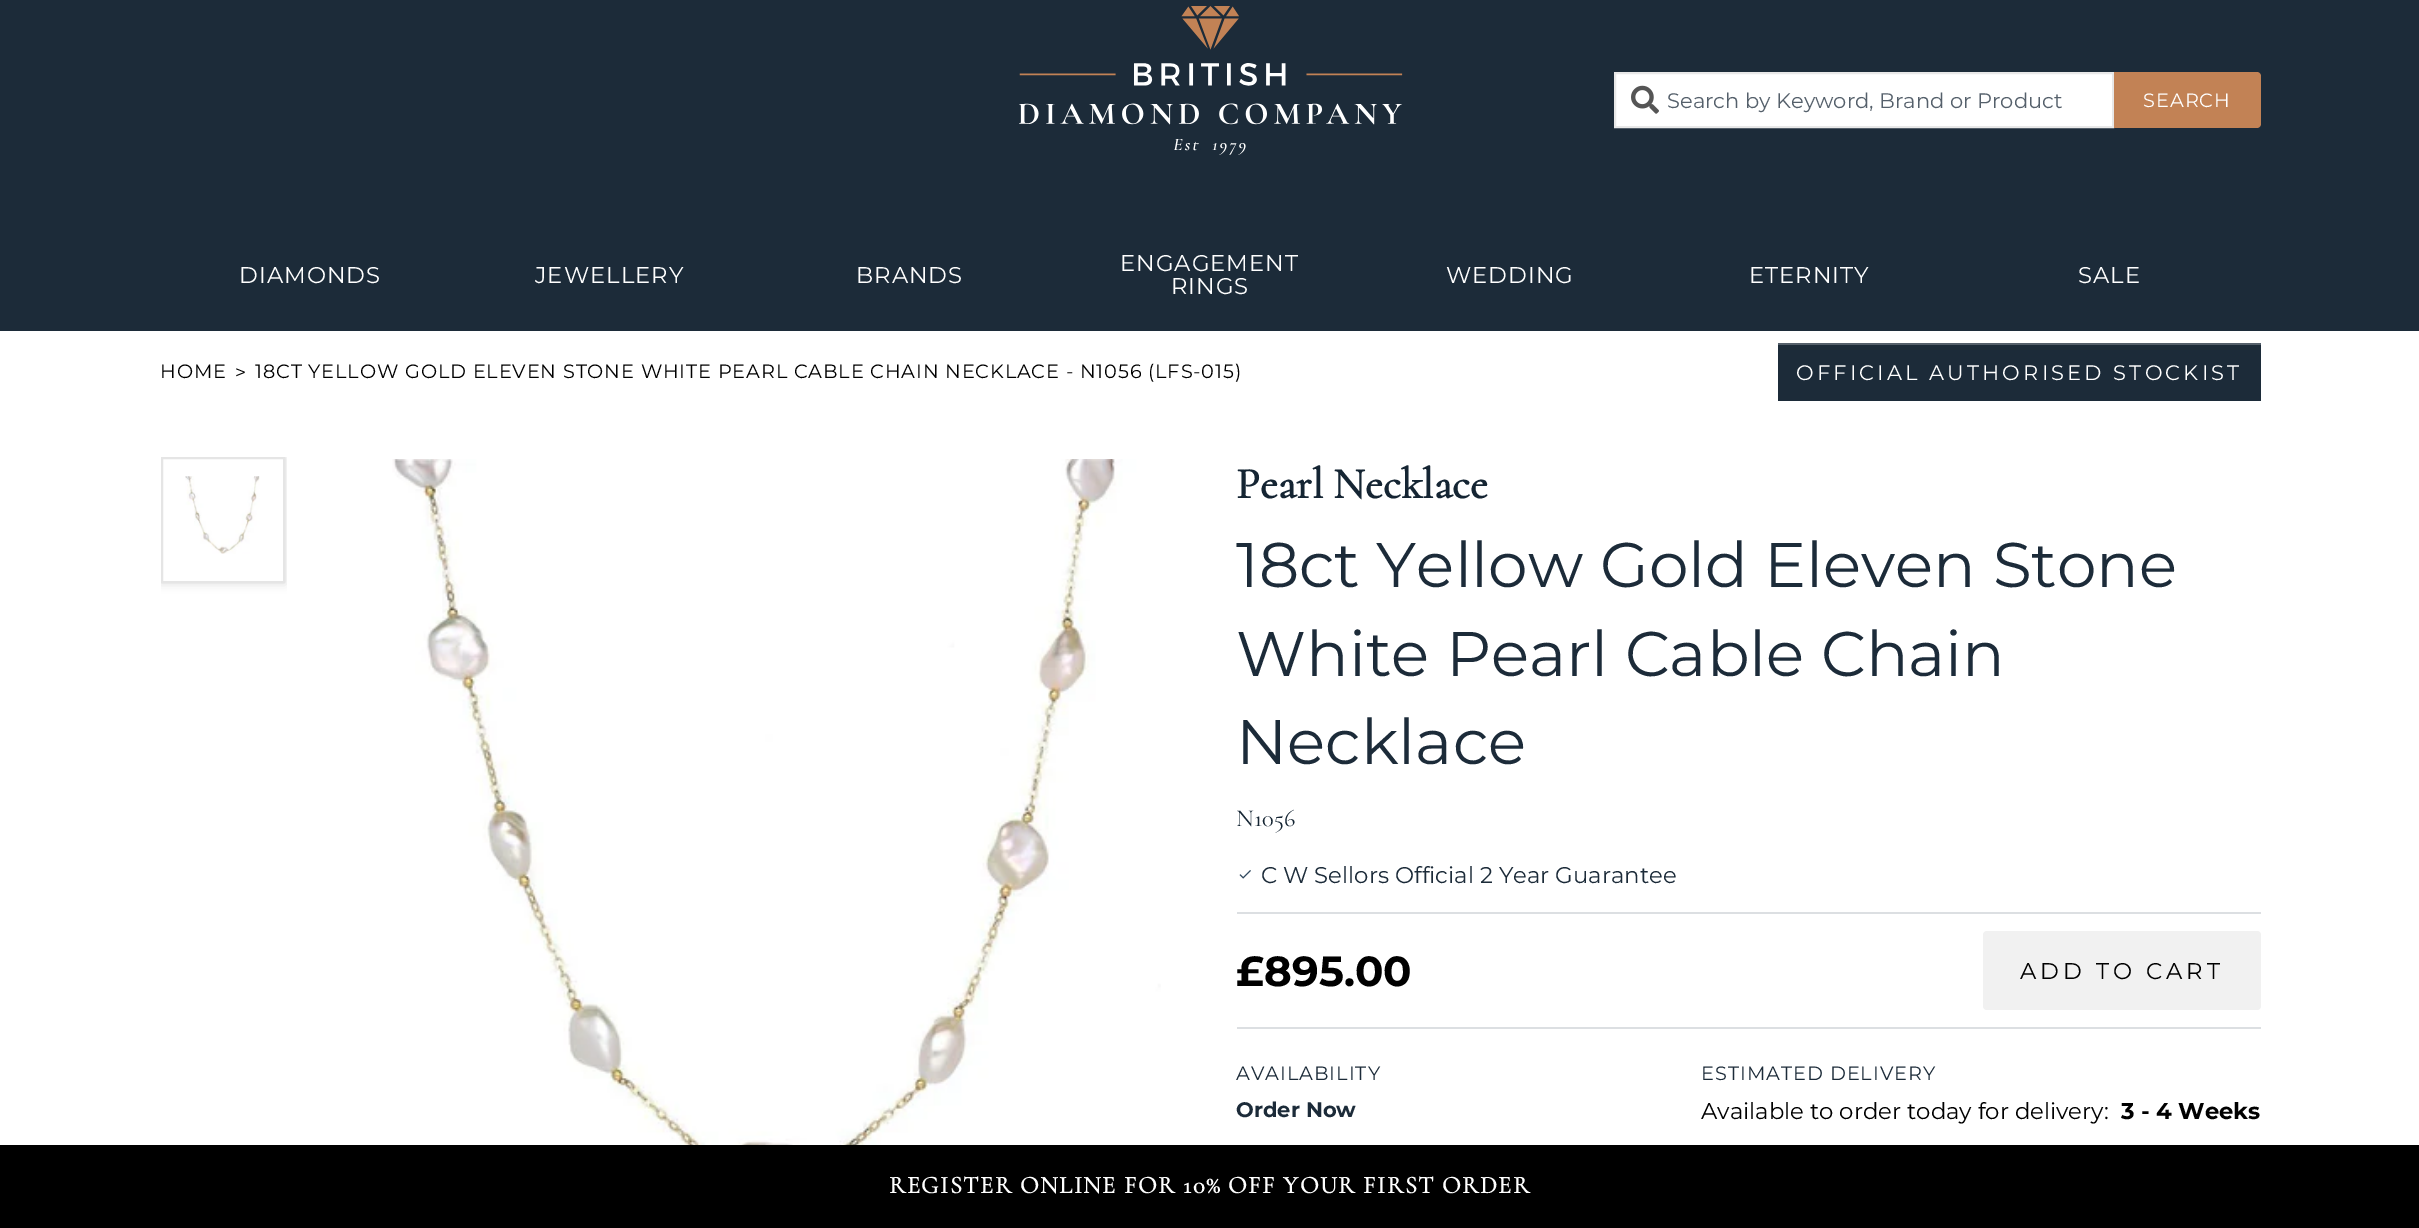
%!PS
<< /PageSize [2419 1228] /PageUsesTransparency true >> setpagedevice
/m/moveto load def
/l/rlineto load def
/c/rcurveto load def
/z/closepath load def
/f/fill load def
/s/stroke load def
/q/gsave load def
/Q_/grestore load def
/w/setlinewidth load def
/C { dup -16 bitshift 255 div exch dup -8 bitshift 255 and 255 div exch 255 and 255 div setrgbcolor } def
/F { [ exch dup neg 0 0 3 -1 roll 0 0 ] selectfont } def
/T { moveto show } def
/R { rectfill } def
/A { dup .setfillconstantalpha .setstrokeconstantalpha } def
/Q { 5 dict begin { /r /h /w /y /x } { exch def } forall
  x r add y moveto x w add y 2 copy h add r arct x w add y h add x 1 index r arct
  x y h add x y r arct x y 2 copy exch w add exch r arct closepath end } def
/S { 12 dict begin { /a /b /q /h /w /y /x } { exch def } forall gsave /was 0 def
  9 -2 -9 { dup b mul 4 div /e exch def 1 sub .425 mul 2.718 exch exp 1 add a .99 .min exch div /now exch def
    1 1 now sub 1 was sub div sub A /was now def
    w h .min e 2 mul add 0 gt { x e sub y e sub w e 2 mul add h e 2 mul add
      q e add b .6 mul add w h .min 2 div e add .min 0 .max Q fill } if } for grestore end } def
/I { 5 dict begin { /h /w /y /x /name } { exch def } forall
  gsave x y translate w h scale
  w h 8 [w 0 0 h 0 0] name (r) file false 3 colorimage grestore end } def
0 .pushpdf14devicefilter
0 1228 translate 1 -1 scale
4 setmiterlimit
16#FFFFFF C
0 0 2419 1228 R
16#1C2B39 C
0 0 2419 331 R
(1.rgb) 1019 6 384 149 I
16#FFFFFF C
1615 73 m 498 0 l 0 54 l -498 0 l z q f Q_
16#E8E8E8 C
2 w
s
(2.rgb) 1631 85 28 29 I
/Montserrat-Regular 21 F
16#55606B C
(Search by Keyword, Brand or Product) 1667 108 T
16#C28255 C
2114 72 m 143 0 l 2 0 4 2 4 4 c 0 48 l 0 2 -2 4 -4 4 c -143 0 l z f
/Montserrat-Regular 19.25 F
16#FFFFFF C
2143 107 m 1 0 (SEARCH) ashow
/Montserrat-Regular 22.75 F
239 283 m 1 0 (DIAMONDS) ashow
535 283 m 1 0 (JEWELLERY) ashow
856 283 m 1 0 (BRANDS) ashow
1120 271 m 1 0 (ENGAGEMENT) ashow
1171 294 m 1 0 (RINGS) ashow
1446 283 m 1 0 (WEDDING) ashow
1749 283 m 1 0 (ETERNITY) ashow
2078 283 m 1 0 (SALE) ashow
/Montserrat-Regular 19.25 F
16#000000 C
160 378 m .88 0 (HOME) ashow
(>) 235 379 T
255 378 m .88 0 (18CT YELLOW GOLD ELEVEN STONE WHITE PEARL CABLE CHAIN NECKLACE - N1056 \(LFS-015\)) ashow
16#1C2B39 C
1778 345 483 56 R
16#55606B C
1778 343 483 2 R
/Montserrat-Regular 21 F
16#FFFFFF C
1796 380 m 3.15 0 (OFFICIAL AUTHORISED STOCKIST) ashow
q
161 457 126 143 rectclip
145 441 m 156 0 l 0 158 l -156 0 l z 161 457 m 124 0 l 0 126 l -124 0 l z eoclip newpath
16#000000 C
161 457 124 126 0 5 .15 S
Q_
16#E5E5E5 C
162 458 122 124 rectstroke
(3.rgb) 185 476 75 78 I
(4.rgb) 392 459 769 686 I
/Cormorant-Bold 43.75 F
16#152533 C
(Pearl Necklace) 1236 498 T
/Montserrat-Regular 63 F
16#1C2B39 C
(18ct Yellow Gold Eleven Stone) 1236 587 T
(White Pearl Cable Chain) 1236 676 T
(Necklace) 1236 764 T
/Cormorant-Regular 24.5 F
16#152533 C
(N1056) 1236 826 T
(5.rgb) 1239 870 12 9 I
/Montserrat-Regular 22.75 F
16#1C2B39 C
(C W Sellors Official 2 Year Guarantee) 1261 883 T
16#DCDFE2 C
1237 912 1024 2 R
1237 1027 1024 2 R
/Montserrat-Bold 42 F
16#000000 C
(£895.00) 1236 986 T
16#F1F1F1 C
1983 931 278 79 4 Q f
/Montserrat-Regular 22.75 F
16#000000 C
2020 979 m 4 0 (ADD TO CART) ashow
/Montserrat-Regular 19.25 F
16#1C2B39 C
1236 1080 m 1 0 (AVAILABILITY) ashow
/Montserrat-Bold 21 F
(Order Now) 1236 1117 T
/Montserrat-Regular 19.25 F
1701 1080 m 1 0 (ESTIMATED DELIVERY) ashow
/Montserrat-Regular 22.75 F
16#000000 C
(Available to order today for delivery:) 1701 1119 T
/Montserrat-Bold 22.75 F
(3 - 4 Weeks) 2121 1119 T
0 1145 2419 83 R
/Cormorant-Bold 24.5 F
16#FFFFFF C
889 1193 m 1.4 0 (REGISTER ONLINE FOR 10% OFF YOUR FIRST ORDER) ashow
.poppdf14devicefilter showpage
